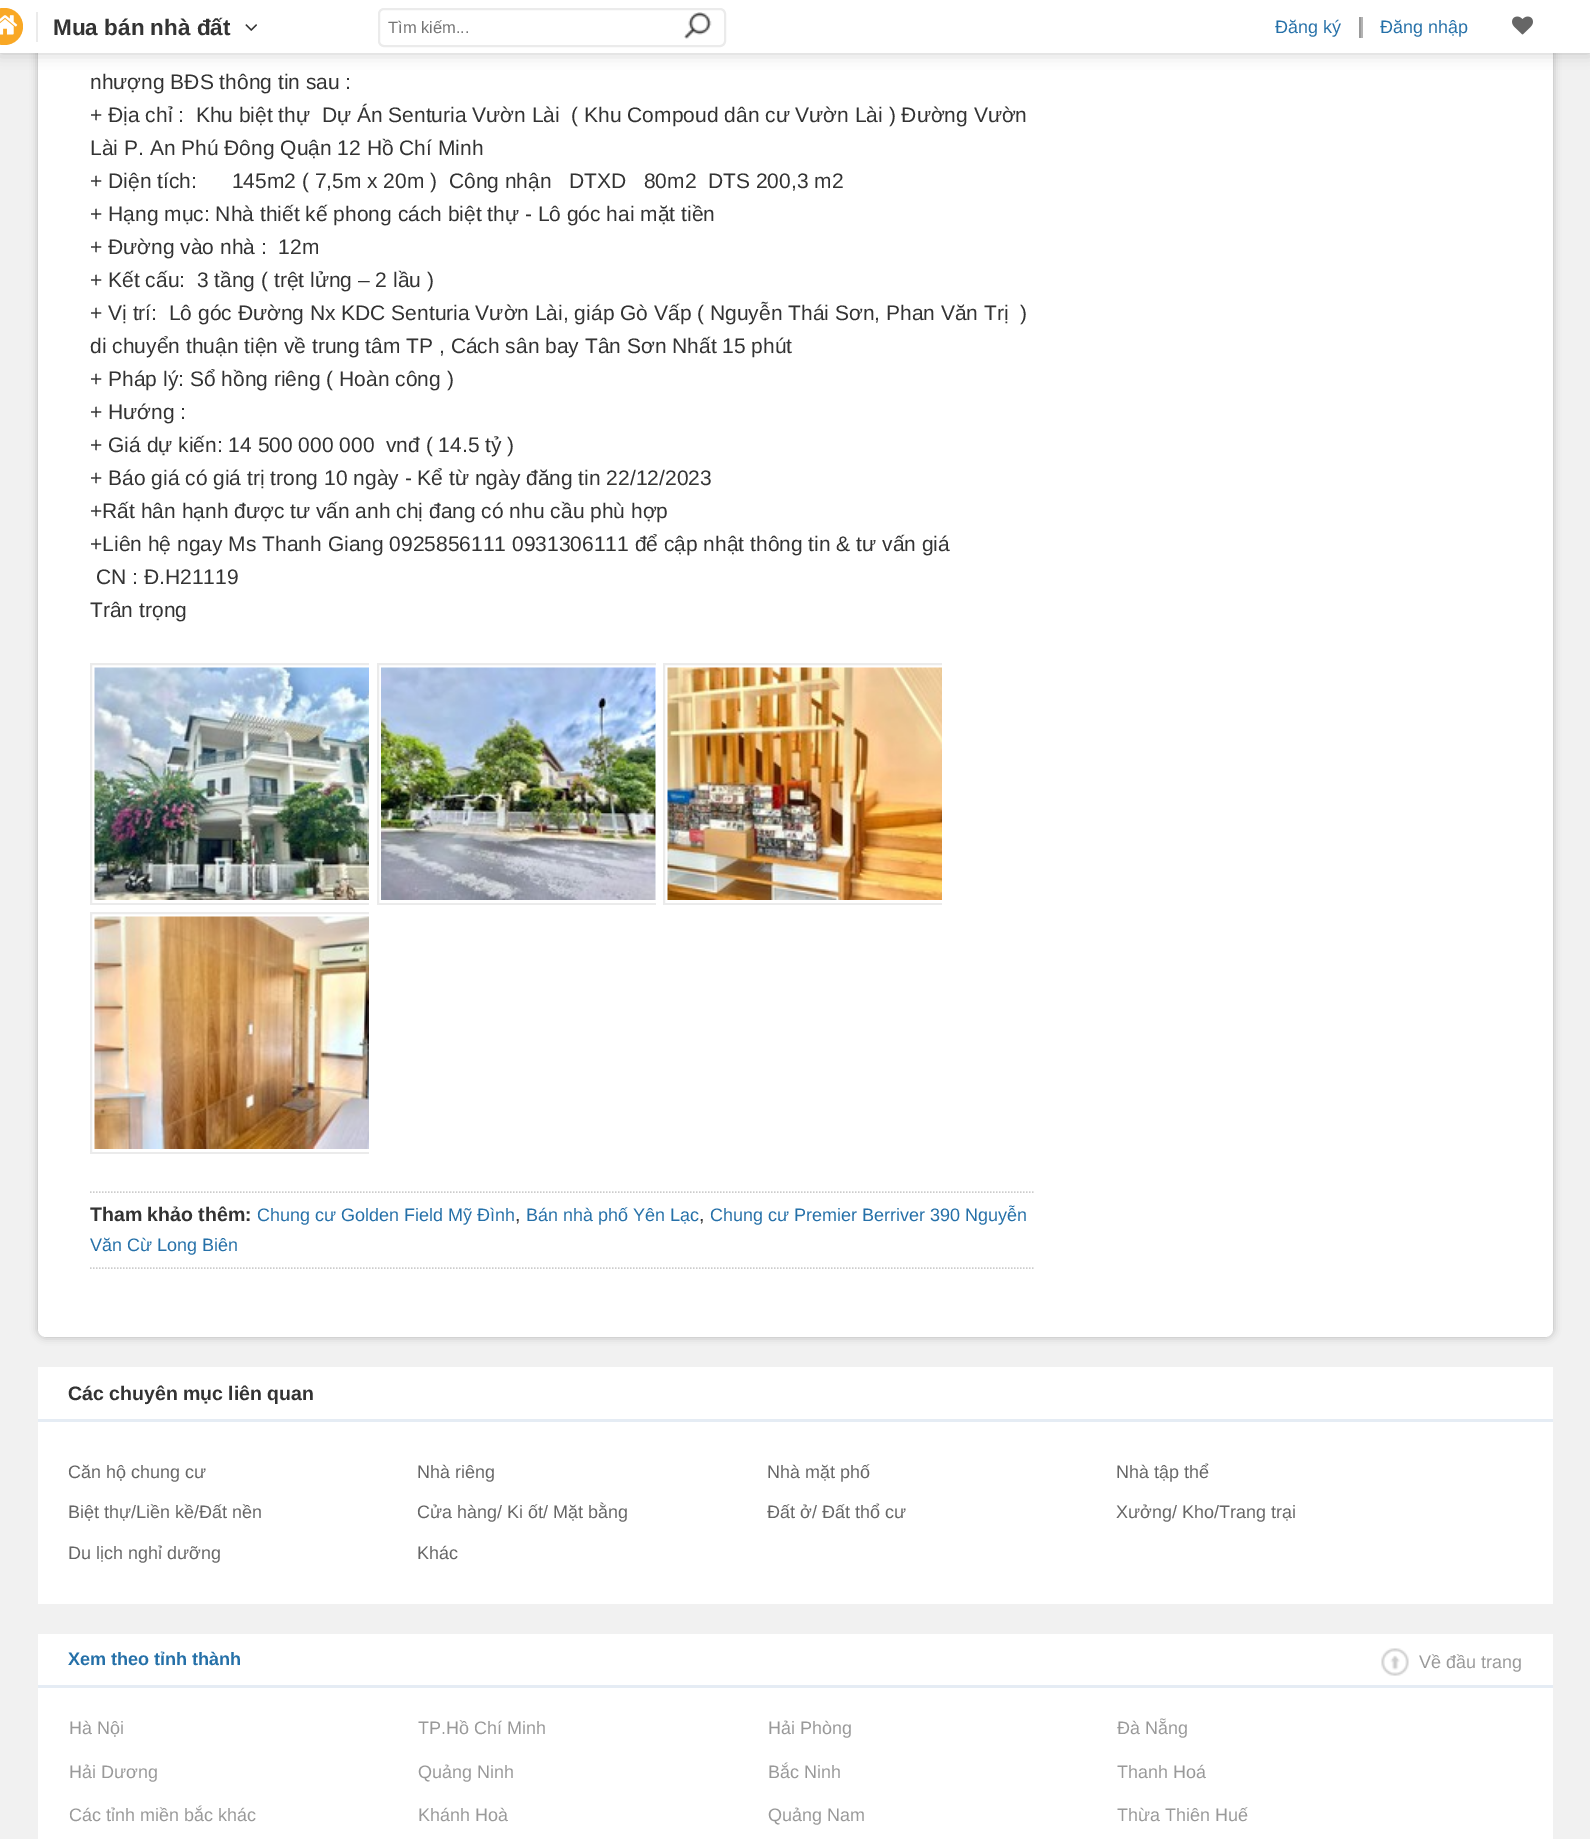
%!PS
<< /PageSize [1590 1839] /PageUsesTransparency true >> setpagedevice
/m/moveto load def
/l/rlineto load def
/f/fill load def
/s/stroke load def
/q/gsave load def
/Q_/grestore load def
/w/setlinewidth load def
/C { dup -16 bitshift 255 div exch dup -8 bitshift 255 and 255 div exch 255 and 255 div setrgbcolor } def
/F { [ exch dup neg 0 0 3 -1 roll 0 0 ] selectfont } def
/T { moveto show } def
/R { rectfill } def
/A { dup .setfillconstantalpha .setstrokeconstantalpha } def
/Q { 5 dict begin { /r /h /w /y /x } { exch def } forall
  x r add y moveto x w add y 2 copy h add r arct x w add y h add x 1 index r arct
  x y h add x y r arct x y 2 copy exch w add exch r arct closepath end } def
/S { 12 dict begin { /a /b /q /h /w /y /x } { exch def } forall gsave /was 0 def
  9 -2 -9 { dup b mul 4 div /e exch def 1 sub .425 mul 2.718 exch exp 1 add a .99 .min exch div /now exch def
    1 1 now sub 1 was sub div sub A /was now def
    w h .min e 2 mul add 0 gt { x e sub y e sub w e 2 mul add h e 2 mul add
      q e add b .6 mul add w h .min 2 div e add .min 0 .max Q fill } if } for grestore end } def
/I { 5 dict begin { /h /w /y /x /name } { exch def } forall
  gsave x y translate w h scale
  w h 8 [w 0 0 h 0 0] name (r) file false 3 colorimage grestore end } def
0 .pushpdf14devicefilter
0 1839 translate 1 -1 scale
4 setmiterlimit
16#F1F1F1 C
0 0 1590 1839 R
16#000000 C
38 -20 1515 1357 8 4 .25 S
16#FFFFFF C
38 -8 1515 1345 8 Q f
16#000000 C
0 0 1590 53 0 7.5 .2 S
16#FFFFFF C
0 0 1590 53 R
16#F9A825 C
-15 8 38 37 18.5 Q f
(1.rgb) 0 15 18 20 I
16#EBEBEB C
36 12 2 30 R
/LiberationSans-Bold 22.5 F
16#333333 C
(Mua bán nhà đất) 53 35 T
(2.rgb) 245 24 12 7 I
16#EBEBEB C
2 w
379 9 346 37 5 Q s
/LiberationSans-Regular 16.5 F
16#757575 C
(Tìm kiếm...) 388 33 T
(3.rgb) 684 12 28 27 I
16#9A9A9A C
1359 17 2 21 R
/LiberationSans-Regular 18 F
16#2570A8 C
(Đăng ký) 1275 33 T
16#B3B3B3 C
1361 17 2 21 R
16#2570A8 C
(Đăng nhập) 1380 33 T
(4.rgb) 1512 16 21 19 I
/LiberationSans-Regular 21 F
16#333333 C
(nhượng BĐS thông tin sau :) 90 89 T
(+ Địa chỉ :  Khu biệt thự  Dự Án Senturia Vườn Lài  \( Khu Compoud dân cư Vườn Lài \) Đường Vườn) 90 122 T
(Lài P. An Phú Đông Quận 12 Hồ Chí Minh) 90 155 T
(+ Diện tích:      145m2 \( 7,5m x 20m \)  Công nhận   DTXD   80m2  DTS 200,3 m2) 90 188 T
(+ Hạng mục: Nhà thiết kế phong cách biệt thự - Lô góc hai mặt tiền) 90 221 T
(+ Đường vào nhà :  12m) 90 254 T
(+ Kết cấu:  3 tầng \( trệt lửng – 2 lầu \)) 90 287 T
(+ Vị trí:  Lô góc Đường Nx KDC Senturia Vườn Lài, giáp Gò Vấp \( Nguyễn Thái Sơn, Phan Văn Trị  \)) 90 320 T
(di chuyển thuận tiện về trung tâm TP , Cách sân bay Tân Sơn Nhất 15 phút) 90 353 T
(+ Pháp lý: Sổ hồng riêng \( Hoàn công \)) 90 386 T
(+ Hướng :) 90 419 T
(+ Giá dự kiến: 14 500 000 000  vnđ \( 14.5 tỷ \)) 90 452 T
(+ Báo giá có giá trị trong 10 ngày - Kể từ ngày đăng tin 22/12/2023) 90 485 T
(+Rất hân hạnh được tư vấn anh chị đang có nhu cầu phù hợp) 90 518 T
(+Liên hệ ngay Ms Thanh Giang 0925856111 0931306111 để cập nhật thông tin & tư vấn giá) 90 551 T
(CN : Đ.H21119) 96 584 T
(Trân trọng) 90 617 T
q
90 663 279 242 rectclip
16#EBEBEB C
91 664 286 240 rectstroke
Q_
(5.rgb) 94 667 275 233 I
q
377 663 279 242 rectclip
16#EBEBEB C
378 664 286 240 rectstroke
Q_
(6.rgb) 381 667 275 233 I
q
663 663 279 242 rectclip
16#EBEBEB C
664 664 286 240 rectstroke
Q_
(7.rgb) 667 667 275 233 I
q
90 912 279 242 rectclip
16#EBEBEB C
91 913 286 240 rectstroke
Q_
(8.rgb) 94 916 275 233 I
16#CCCCCC C
1.5 w
[1.5 1.5] 0 setdash
90 1192 m 945 0 l s
90 1268 m 945 0 l s
/LiberationSans-Bold 19.5 F
16#333333 C
(Tham khảo thêm:) 90 1221 T
/LiberationSans-Regular 18 F
16#2570A8 C
(Chung cư Golden Field Mỹ Đình) 257 1221 T
/LiberationSans-Regular 19.5 F
16#333333 C
(,) 515 1221 T
/LiberationSans-Regular 18 F
16#2570A8 C
(Bán nhà phố Yên Lạc) 526 1221 T
/LiberationSans-Regular 19.5 F
16#333333 C
(,) 699 1221 T
/LiberationSans-Regular 18 F
16#2570A8 C
(Chung cư Premier Berriver 390 Nguyễn) 710 1221 T
(Văn Cừ Long Biên) 90 1251 T
16#FFFFFF C
38 1367 1515 237 R
16#E5ECF4 C
38 1419 1515 3 R
/LiberationSans-Bold 19.5 F
16#333333 C
(Các chuyên mục liên quan) 68 1400 T
/LiberationSans-Regular 18 F
16#666666 C
(Căn hộ chung cư) 68 1478 T
(Nhà riêng) 417 1478 T
(Nhà mặt phố) 767 1478 T
(Nhà tập thể) 1116 1478 T
(Biệt thự/Liền kề/Đất nền) 68 1518 T
(Cửa hàng/ Ki ốt/ Mặt bằng) 417 1518 T
(Đất ở/ Đất thổ cư) 767 1518 T
(Xưởng/ Kho/Trang trại) 1116 1518 T
(Du lịch nghỉ dưỡng) 68 1559 T
(Khác) 417 1559 T
16#FFFFFF C
38 1634 1515 205 R
16#E5ECF4 C
38 1685 1515 3 R
/LiberationSans-Bold 18 F
16#2570A8 C
(Xem theo tỉnh thành) 68 1665 T
(9.rgb) 1381 1648 28 28 I
/LiberationSans-Regular 18 F
16#999999 C
(Về đầu trang) 1419 1668 T
(Hà Nội) 69 1734 T
(TP.Hồ Chí Minh) 418 1734 T
(Hải Phòng) 768 1734 T
(Đà Nẵng) 1117 1734 T
(Hải Dương) 69 1778 T
(Quảng Ninh) 418 1778 T
(Bắc Ninh) 768 1778 T
(Thanh Hoá) 1117 1778 T
(Các tỉnh miền bắc khác) 69 1821 T
(Khánh Hoà) 418 1821 T
(Quảng Nam) 768 1821 T
(Thừa Thiên Huế) 1117 1821 T
.poppdf14devicefilter showpage
